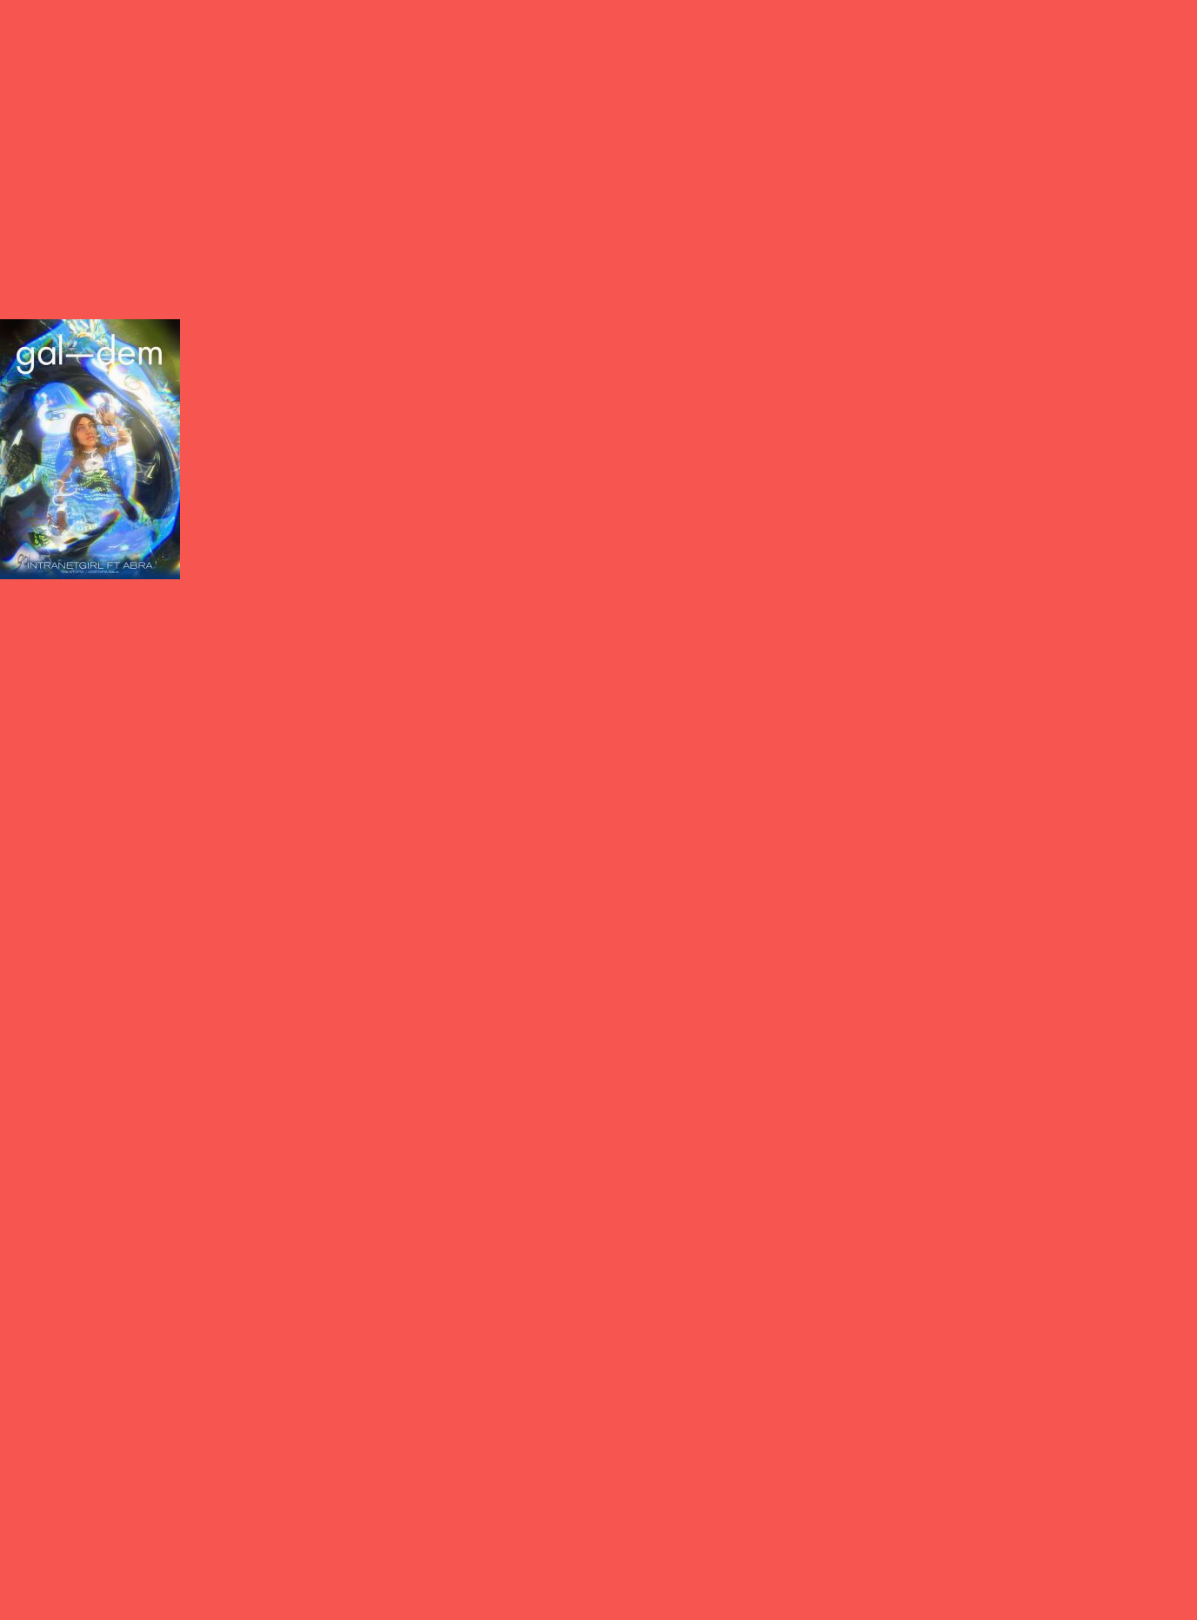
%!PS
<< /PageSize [1197 1620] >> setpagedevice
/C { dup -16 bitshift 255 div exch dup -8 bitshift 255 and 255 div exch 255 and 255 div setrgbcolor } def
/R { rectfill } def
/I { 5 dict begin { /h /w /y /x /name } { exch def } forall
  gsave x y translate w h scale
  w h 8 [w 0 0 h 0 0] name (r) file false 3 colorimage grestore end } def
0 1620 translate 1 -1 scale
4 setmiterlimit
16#F75550 C
0 0 1197 1620 R
(1.rgb) 0 319 180 261 I
showpage
